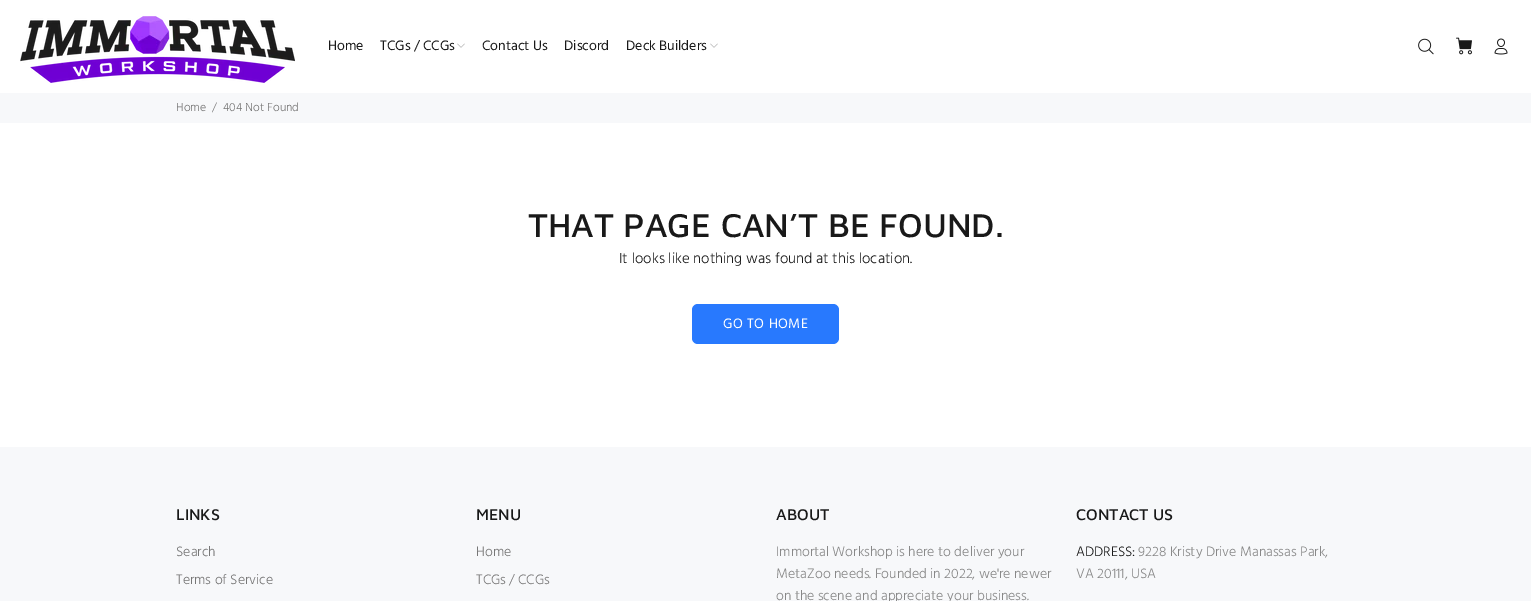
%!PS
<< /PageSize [1531 601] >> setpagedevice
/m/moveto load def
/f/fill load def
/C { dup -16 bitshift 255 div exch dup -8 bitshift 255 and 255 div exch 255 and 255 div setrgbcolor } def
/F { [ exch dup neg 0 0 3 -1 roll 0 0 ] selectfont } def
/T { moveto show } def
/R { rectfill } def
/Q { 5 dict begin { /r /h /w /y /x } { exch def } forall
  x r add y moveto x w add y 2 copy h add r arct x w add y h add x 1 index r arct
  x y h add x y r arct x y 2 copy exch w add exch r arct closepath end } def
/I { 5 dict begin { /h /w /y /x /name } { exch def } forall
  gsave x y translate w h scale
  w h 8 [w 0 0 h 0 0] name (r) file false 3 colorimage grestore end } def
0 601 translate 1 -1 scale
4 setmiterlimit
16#FFFFFF C
0 0 1531 601 R
(1.rgb) 20 16 275 67 I
/Hind-Regular 14 F
16#191919 C
(Home) 328 50 T
(TCGs / CCGs) 380 50 T
(2.rgb) 457 43 8 5 I
(Contact Us) 482 50 T
(Discord) 564 50 T
(Deck Builders) 626 50 T
(2.rgb) 710 43 8 5 I
(3.rgb) 1418 38 16 17 I
(4.rgb) 1456 37 16 18 I
(5.rgb) 1494 38 14 17 I
16#F7F8FA C
0 93 1531 30 R
/Hind-Light 12 F
16#777777 C
(Home) 176 111 T
(/) 212 111 T
(404 Not Found) 223 111 T
/MavenPro-Medium 34 F
16#191919 C
(THAT PAGE CAN’T BE FOUND.) 528 237 T
/Hind-Light 15 F
(It looks like nothing was found at this location.) 619 263 T
16#2879FE C
692 304 147 40 6 Q f
/Hind-Regular 14 F
16#FFFFFF C
723 328 m .5 0 (GO TO HOME) ashow
16#F7F8FA C
0 447 1531 154 R
/MavenPro-Medium 16 F
16#191919 C
(LINKS) 176 520 T
/Hind-Light 14 F
16#777777 C
(Search) 176 556 T
(Terms of Service) 176 584 T
/MavenPro-Medium 16 F
16#191919 C
(MENU) 476 520 T
/Hind-Light 14 F
16#777777 C
(Home) 476 556 T
(TCGs / CCGs) 476 584 T
/MavenPro-Medium 16 F
16#191919 C
(ABOUT) 776 520 T
/Hind-Light 14 F
16#888888 C
(Immortal Workshop is here to deliver your) 776 556 T
(MetaZoo needs. Founded in 2022, we're newer) 776 578 T
(on the scene and appreciate your business.) 776 600 T
/MavenPro-Medium 16 F
16#191919 C
(CONTACT US) 1076 520 T
/Hind-Light 14 F
(ADDRESS:) 1076 556 T
16#888888 C
(9228 Kristy Drive Manassas Park,) 1138 556 T
(VA 20111, USA) 1076 578 T
showpage
